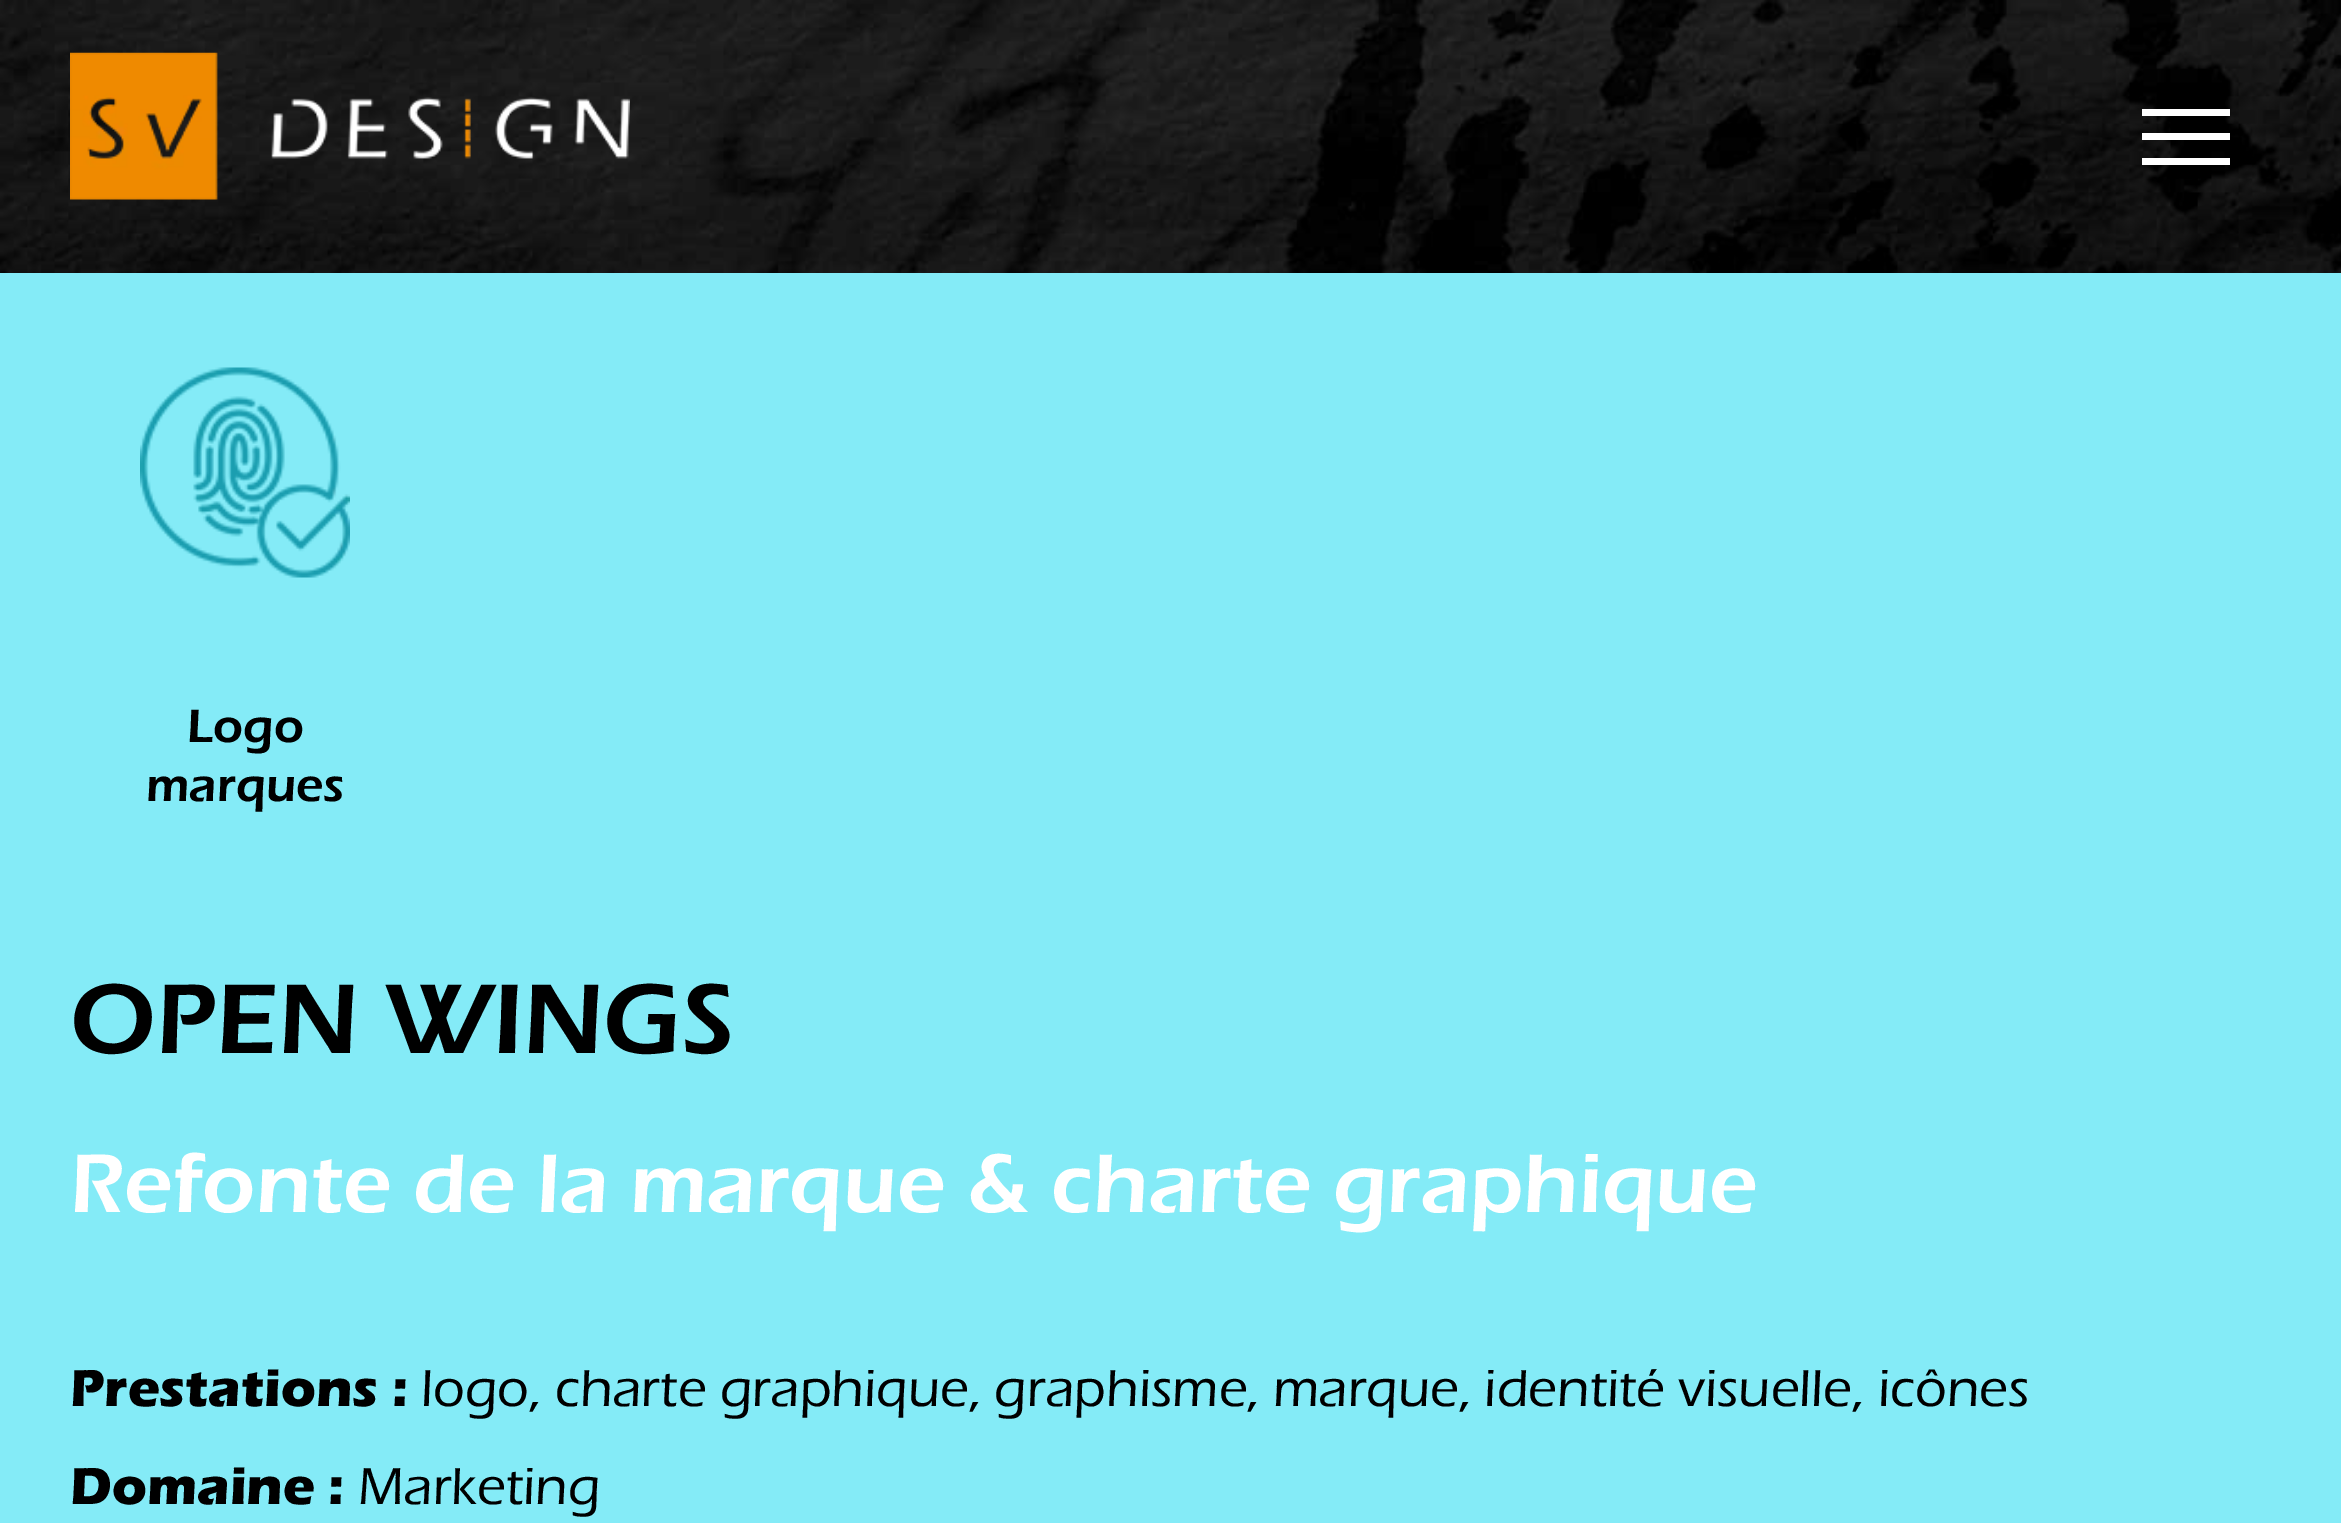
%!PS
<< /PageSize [2341 1523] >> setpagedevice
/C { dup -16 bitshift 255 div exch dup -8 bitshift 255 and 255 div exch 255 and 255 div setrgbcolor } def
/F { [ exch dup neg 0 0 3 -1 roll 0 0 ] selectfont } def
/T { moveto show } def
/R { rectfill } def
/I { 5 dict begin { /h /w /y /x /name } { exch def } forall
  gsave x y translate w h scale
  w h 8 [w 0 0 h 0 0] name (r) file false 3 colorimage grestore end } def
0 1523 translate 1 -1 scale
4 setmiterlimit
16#84EBF7 C
0 0 2341 1523 R
(1.rgb) 0 0 2341 273 I
(2.rgb) 70 52 560 148 I
16#FFFFFF C
2142 133 88 7 R
2142 109 88 7 R
2142 158 88 7 R
(3.rgb) 140 367 210 211 I
/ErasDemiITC-Regular 48.5 F
16#000000 C
(Logo) 187 742 T
(marques) 146 801 T
/ErasDemiITC-Regular 102.5 F
(OPEN WINGS) 70 1053 T
/ErasDemiITC-Regular 86.25 F
16#FFFFFF C
(Refonte de la marque & charte graphique) 70 1212 T
/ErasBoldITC-Bold 53.9 F
16#000000 C
(Prestations :) 70 1406 T
/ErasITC-Medium 53.9 F
(logo, charte graphique, graphisme, marque, identité visuelle, icônes) 421 1406 T
/ErasBoldITC-Bold 53.9 F
(Domaine :) 70 1504 T
/ErasITC-Medium 53.9 F
(Marketing) 358 1504 T
showpage
